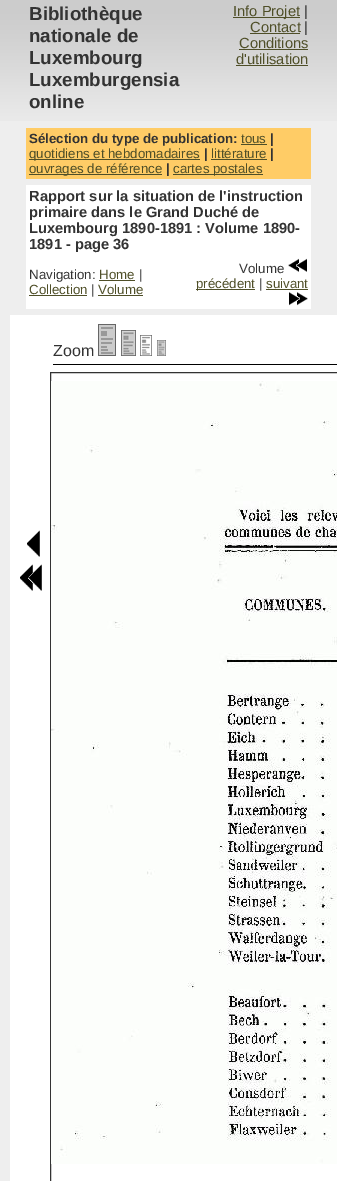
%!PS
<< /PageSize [337 1181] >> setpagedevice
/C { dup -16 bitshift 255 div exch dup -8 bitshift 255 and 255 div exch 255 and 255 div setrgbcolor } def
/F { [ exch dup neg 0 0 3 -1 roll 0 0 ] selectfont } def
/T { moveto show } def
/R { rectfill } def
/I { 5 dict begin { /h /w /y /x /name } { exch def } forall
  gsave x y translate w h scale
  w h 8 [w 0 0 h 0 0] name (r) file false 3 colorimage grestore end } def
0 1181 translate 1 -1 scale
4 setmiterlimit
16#EEEEEE C
0 0 337 1181 R
(1.rgb) 0 0 337 121 I
(2.rgb) 26 0 285 121 I
/LiberationSans-Bold 18.75 F
16#333333 C
(Bibliothèque) 29 20 T
(nationale de) 29 42 T
(Luxembourg) 29 64 T
(Luxemburgensia) 29 86 T
(online) 29 108 T
16#4F4F28 C
233 17 67 1 R
/LiberationSans-Regular 14.7 F
(Info Projet) 233 16 T
16#333333 C
(|) 304 16 T
16#4F4F28 C
(Contact) 250 32 T
250 33 50 1 R
16#333333 C
(|) 304 32 T
16#4F4F28 C
(Conditions) 239 48 T
239 49 69 1 R
(d'utilisation) 236 64 T
236 65 72 1 R
16#FFCC66 C
26 128 285 51 R
/LiberationSans-Bold 13.3 F
16#333333 C
(Sélection du type de publication:) 29 143 T
/LiberationSans-Regular 13.3 F
16#4F4F28 C
(tous) 241 143 T
241 144 26 1 R
/LiberationSans-Bold 13.3 F
16#333333 C
(|) 270 143 T
16#4F4F28 C
29 159 171 1 R
/LiberationSans-Regular 13.3 F
(quotidiens et hebdomadaires) 29 158 T
/LiberationSans-Bold 13.3 F
16#333333 C
(|) 204 158 T
/LiberationSans-Regular 13.3 F
16#4F4F28 C
(littérature) 211 158 T
211 159 56 1 R
/LiberationSans-Bold 13.3 F
16#333333 C
(|) 270 158 T
16#4F4F28 C
29 174 133 1 R
/LiberationSans-Regular 13.3 F
(ouvrages de référence) 29 173 T
/LiberationSans-Bold 13.3 F
16#333333 C
(|) 166 173 T
16#4F4F28 C
173 174 90 1 R
/LiberationSans-Regular 13.3 F
(cartes postales) 173 173 T
16#FFFFFF C
26 185 285 124 R
/LiberationSans-Bold 14.7 F
16#333333 C
(Rapport sur la situation de l'instruction) 29 201 T
(primaire dans le Grand Duché de) 29 217 T
(Luxembourg 1890-1891 : Volume 1890-) 29 233 T
(1891 - page 36) 29 249 T
/LiberationSans-Regular 13.3 F
(Navigation:) 29 279 T
16#4F4F28 C
(Home) 99 279 T
99 280 36 1 R
16#333333 C
(|) 139 279 T
16#4F4F28 C
(Collection) 29 294 T
29 295 58 1 R
16#333333 C
(|) 91 294 T
16#4F4F28 C
(Volume) 98 294 T
98 295 45 1 R
16#333333 C
(Volume) 239 273 T
(3.rgb) 288 258 19 14 I
16#4F4F28 C
196 289 59 1 R
(précédent) 196 288 T
16#333333 C
(|) 259 288 T
16#4F4F28 C
(suivant) 266 288 T
266 289 42 1 R
(4.rgb) 289 292 19 14 I
16#FFFFFF C
10 315 327 866 R
/LiberationSans-Regular 16 F
16#333333 C
(Zoom) 53 356 T
(5.rgb) 98 324 18 32 I
(6.rgb) 121 330 15 26 I
(7.rgb) 140 335 12 21 I
(8.rgb) 157 340 9 16 I
16#000000 C
53 364 284 1 R
(9.rgb) 27 530 13 27 I
(10.rgb) 20 564 22 27 I
16#333333 C
50.5 372.5 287 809 rectstroke
(11.rgb) 51 381 286 783 I
showpage
